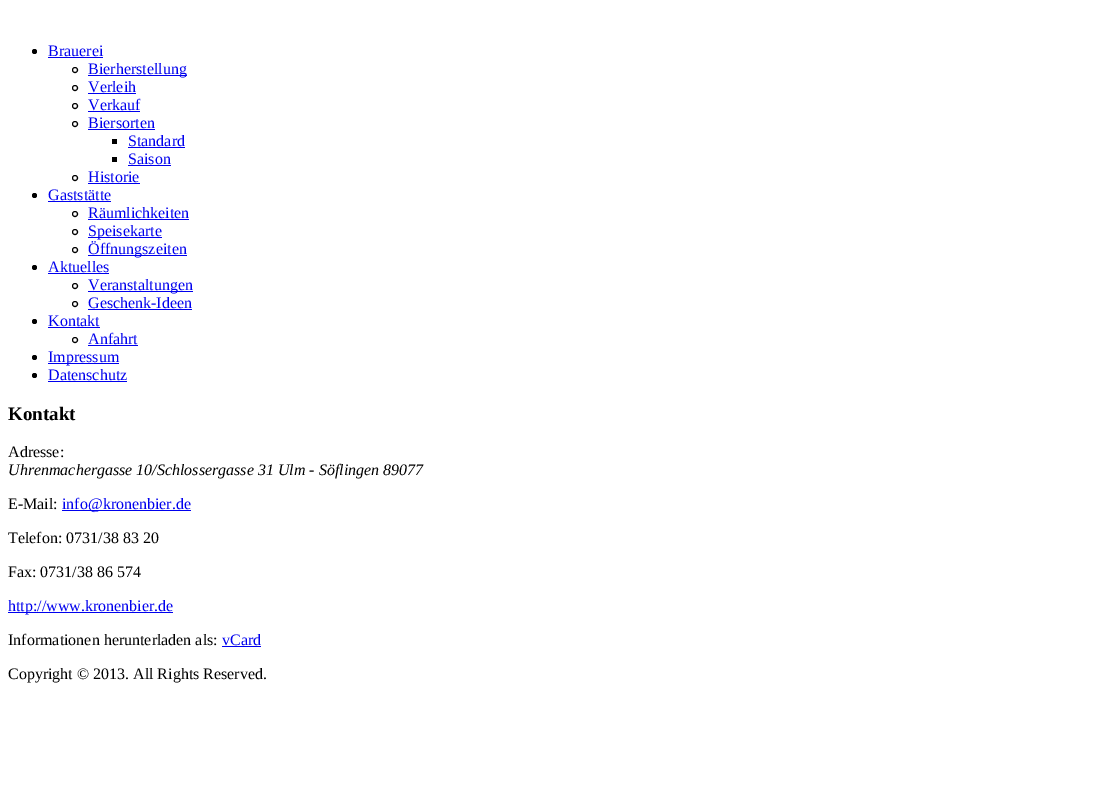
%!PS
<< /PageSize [1096 804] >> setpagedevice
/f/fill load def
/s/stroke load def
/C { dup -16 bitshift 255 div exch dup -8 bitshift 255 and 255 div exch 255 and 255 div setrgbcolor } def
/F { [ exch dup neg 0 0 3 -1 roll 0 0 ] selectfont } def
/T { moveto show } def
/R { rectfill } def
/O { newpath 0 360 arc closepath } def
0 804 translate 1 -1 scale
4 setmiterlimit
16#FFFFFF C
0 0 1096 804 R
16#000000 C
34.5 51.5 2.5 O f
/LiberationSerif-Regular 16 F
16#0000EE C
(Brauerei) 48 56 T
48 57 55 1 R
16#000000 C
75 70 2.5 O s
16#0000EE C
88 75 99 1 R
(Bierherstellung) 88 74 T
16#000000 C
75 88 2.5 O s
16#0000EE C
(Verleih) 88 92 T
88 93 48 1 R
16#000000 C
75 106 2.5 O s
16#0000EE C
(Verkauf) 88 110 T
88 111 52 1 R
16#000000 C
75 124 2.5 O s
16#0000EE C
(Biersorten) 88 128 T
88 129 67 1 R
16#000000 C
112 139 5 5 R
16#0000EE C
(Standard) 128 146 T
128 147 57 1 R
16#000000 C
112 157 5 5 R
16#0000EE C
(Saison) 128 164 T
128 165 43 1 R
16#000000 C
75 178 2.5 O s
16#0000EE C
(Historie) 88 182 T
88 183 52 1 R
16#000000 C
34.5 195.5 2.5 O f
16#0000EE C
(Gaststätte) 48 200 T
48 201 63 1 R
16#000000 C
75 214 2.5 O s
16#0000EE C
(Räumlichkeiten) 88 218 T
88 219 101 1 R
16#000000 C
75 232 2.5 O s
16#0000EE C
88 237 74 1 R
(Speisekarte) 88 236 T
16#000000 C
75 250 2.5 O s
16#0000EE C
88 255 99 1 R
(Öffnungszeiten) 88 254 T
16#000000 C
34.5 267.5 2.5 O f
16#0000EE C
(Aktuelles) 48 272 T
48 273 61 1 R
16#000000 C
75 286 2.5 O s
16#0000EE C
88 291 105 1 R
(Veranstaltungen) 88 290 T
16#000000 C
75 304 2.5 O s
16#0000EE C
(Geschenk-Ideen) 88 308 T
88 309 104 1 R
16#000000 C
34.5 321.5 2.5 O f
16#0000EE C
(Kontakt) 48 326 T
48 327 52 1 R
16#000000 C
75 340 2.5 O s
16#0000EE C
(Anfahrt) 88 344 T
88 345 50 1 R
16#000000 C
34.5 357.5 2.5 O f
16#0000EE C
48 363 71 1 R
(Impressum) 48 362 T
16#000000 C
34.5 375.5 2.5 O f
16#0000EE C
(Datenschutz) 48 380 T
48 381 79 1 R
/LiberationSerif-Bold 19 F
16#000000 C
(Kontakt) 8 420 T
/LiberationSerif-Regular 16 F
(Adresse:) 8 457 T
/LiberationSerif-Italic 16 F
(Uhrenmachergasse 10/Schlossergasse 31 Ulm - Söflingen 89077) 8 475 T
/LiberationSerif-Regular 16 F
(E-Mail:) 8 509 T
16#0000EE C
62 510 129 1 R
(info@kronenbier.de) 62 509 T
16#000000 C
(Telefon: 0731/38 83 20) 8 543 T
(Fax: 0731/38 86 574) 8 577 T
16#0000EE C
8 612 165 1 R
(http://www.kronenbier.de) 8 611 T
16#000000 C
(Informationen herunterladen als:) 8 645 T
16#0000EE C
(vCard) 222 645 T
222 646 39 1 R
16#000000 C
(Copyright © 2013. All Rights Reserved.) 8 679 T
showpage
